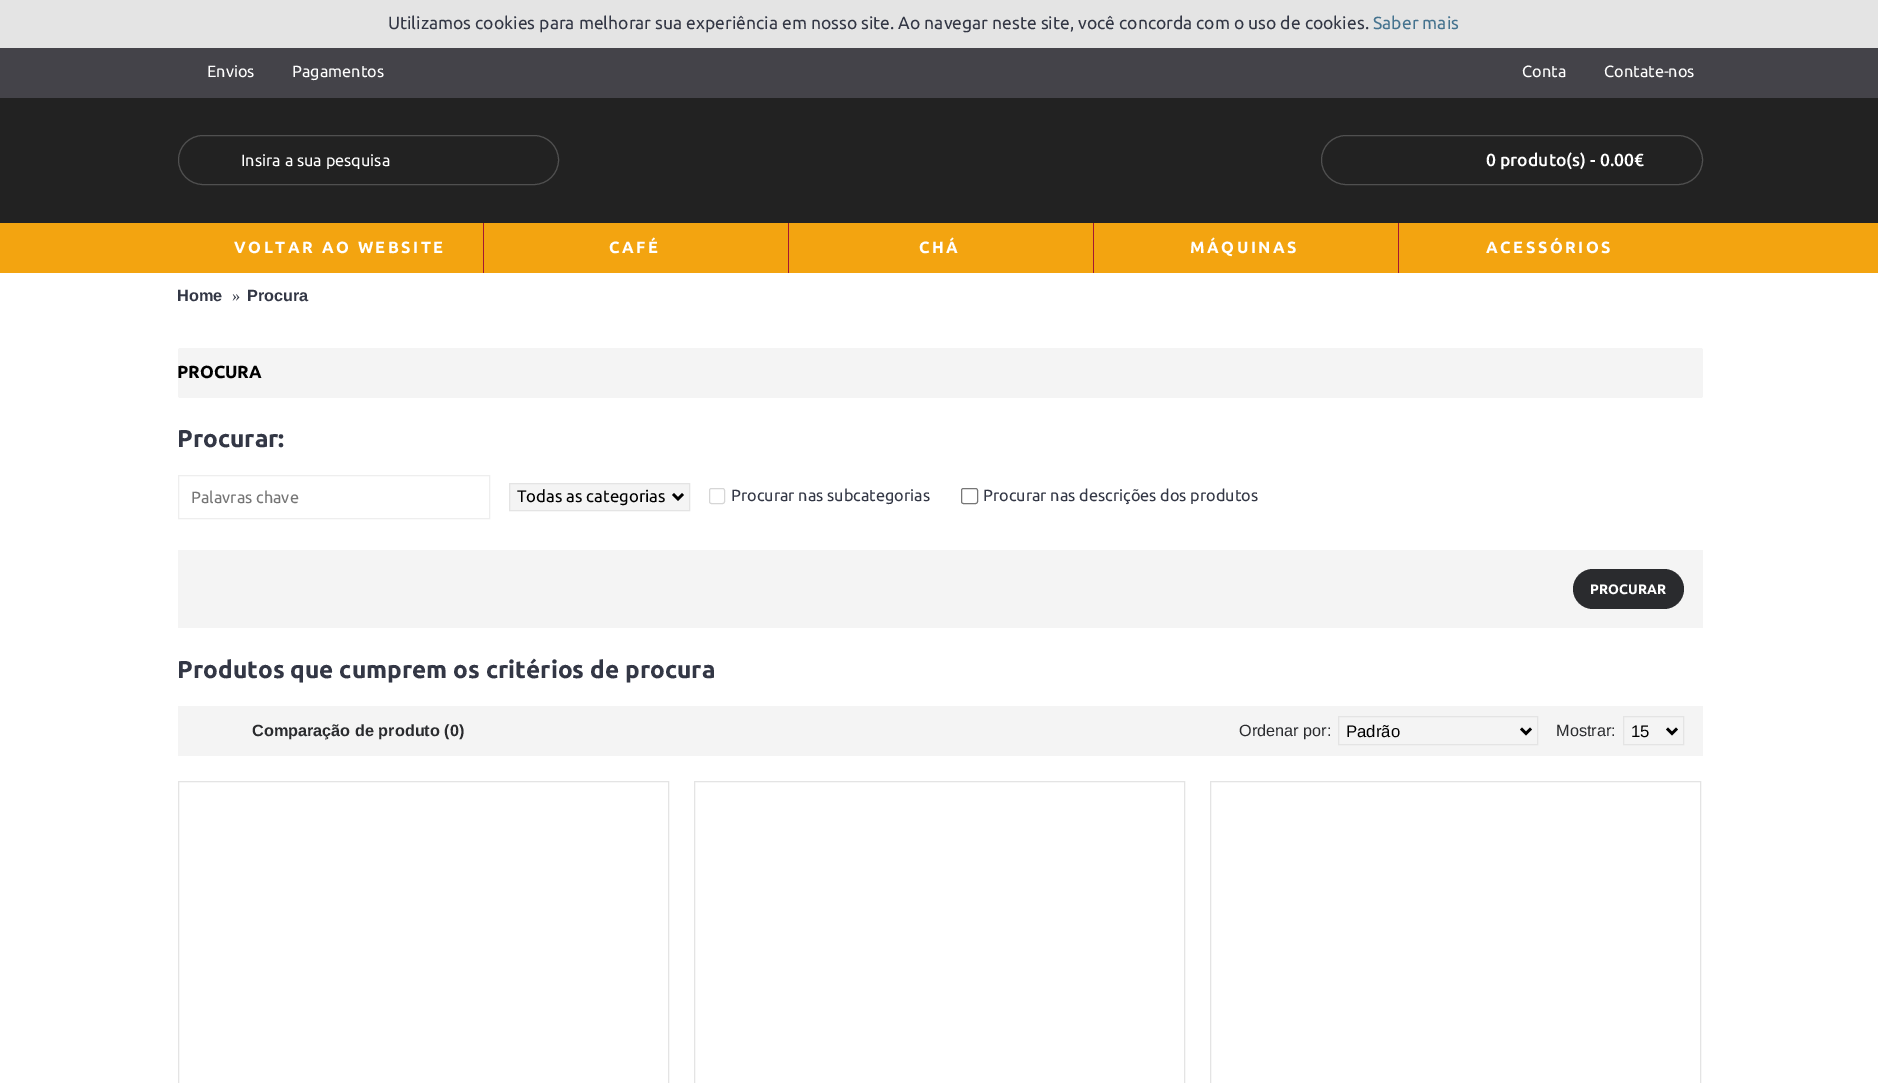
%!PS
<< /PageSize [1878 1083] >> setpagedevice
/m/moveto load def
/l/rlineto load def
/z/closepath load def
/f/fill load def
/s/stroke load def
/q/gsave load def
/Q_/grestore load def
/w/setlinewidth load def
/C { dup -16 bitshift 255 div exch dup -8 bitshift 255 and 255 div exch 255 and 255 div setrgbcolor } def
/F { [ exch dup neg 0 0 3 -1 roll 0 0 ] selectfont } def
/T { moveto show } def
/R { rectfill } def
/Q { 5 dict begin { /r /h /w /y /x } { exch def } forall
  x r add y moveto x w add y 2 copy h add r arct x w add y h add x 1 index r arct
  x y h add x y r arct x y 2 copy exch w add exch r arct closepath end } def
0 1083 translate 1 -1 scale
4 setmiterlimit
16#E4E4E4 C
0 0 1878 1083 R
/Ubuntu-Regular 17.5 F
16#333745 C
(Utilizamos cookies para melhorar sua experiência em nosso site. Ao navegar neste site, você concorda com o uso de cookies.) 388 29 T
16#45738F C
(Saber mais) 1373 29 T
16#222222 C
0 98 1878 125 R
16#444349 C
0 48 1878 50 R
/Ubuntu-Regular 16.25 F
16#FFFFFF C
(Envios) 207 77 T
(Pagamentos) 292 77 T
(Conta) 1522 77 T
(Contate-nos) 1604 77 T
16#505050 C
178.5 135.5 380 49 24.5 Q s
16#FFFFFF C
(Insira a sua pesquisa) 241 166 T
16#505050 C
1321.5 135.5 381 49 24.5 Q s
/Ubuntu-Medium 17.5 F
16#FFFFFF C
(0 produto\(s\) - 0.00€) 1486 166 T
16#F3A410 C
0 223 1878 50 R
/Ubuntu-Bold 16.25 F
16#FFFFFF C
234 253 m 2.5 0 (VOLTAR AO WEBSITE) ashow
16#A41733 C
483 223 1 50 R
16#FFFFFF C
609 253 m 2.5 0 (CAFÉ) ashow
16#A41733 C
788 223 1 50 R
16#FFFFFF C
919 253 m 2.5 0 (CHÁ) ashow
16#A41733 C
1093 223 1 50 R
16#FFFFFF C
1190 253 m 2.5 0 (MÁQUINAS) ashow
16#A41733 C
1398 223 1 50 R
16#FFFFFF C
1486 253 m 2.5 0 (ACESSÓRIOS) ashow
0 273 1878 810 R
/LiberationSans-Bold 16.25 F
16#333745 C
(Home) 177 301 T
/LiberationSerif-Regular 16.25 F
(») 232 301 T
/LiberationSans-Bold 16.25 F
(Procura) 247 301 T
16#F4F4F4 C
178 348 1525 50 2.5 Q f
/Ubuntu-Bold 17.5 F
16#000000 C
(PROCURA) 177 378 T
/Ubuntu-Bold 24.4 F
16#333745 C
(Procurar:) 177 447 T
16#EEEEEE C
178.5 475.5 311 43 rectstroke
/Ubuntu-Regular 16.25 F
16#757575 C
(Palavras chave) 191 503 T
16#F4F4F4 C
509.5 483.5 m 180 0 l 0 27 l -180 0 l z q f Q_
16#E4E4E4 C
s
16#000000 C
2.5 w
673 494 m 5 5 l 5 -5 l s
/Ubuntu-Regular 16.75 F
(Todas as categorias) 517 502 T
16#D6D6D6 C
1 w
709.5 488.5 15 15 2 Q s
/Ubuntu-Regular 16.25 F
16#333745 C
(Procurar nas subcategorias) 731 501 T
16#767676 C
961.5 488.5 16 15 2 Q s
16#333745 C
(Procurar nas descrições dos produtos) 983 501 T
16#F4F4F4 C
178 550 1525 78 R
16#2A2B2E C
1573 569 111 40 20 Q f
/Ubuntu-Bold 13.75 F
16#FFFFFF C
(PROCURAR) 1590 594 T
/Ubuntu-Bold 24.4 F
16#333745 C
(Produtos que cumprem os critérios de procura) 177 678 T
16#F4F4F4 C
178 706 1525 50 R
/LiberationSans-Bold 16.25 F
16#2A2B2E C
(Comparação de produto \(0\)) 252 736 T
/LiberationSans-Regular 16.25 F
(Ordenar por:) 1239 736 T
16#E4E4E4 C
1338.5 716.5 199 28 rectstroke
16#000000 C
2.5 w
1521 728.5 m 5 5 l 5 -5 l s
/LiberationSans-Regular 16.75 F
(Padrão) 1346 737 T
/LiberationSans-Regular 16.25 F
16#2A2B2E C
(Mostrar:) 1556 736 T
16#E4E4E4 C
1 w
1623.5 716.5 60 28 rectstroke
16#000000 C
2.5 w
1667 728.5 m 5 5 l 5 -5 l s
/LiberationSans-Regular 16.75 F
(15) 1631 737 T
16#E4E4E4 C
1 w
178.5 781.5 490 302 rectstroke
694.5 781.5 490 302 rectstroke
1210.5 781.5 490 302 rectstroke
showpage
